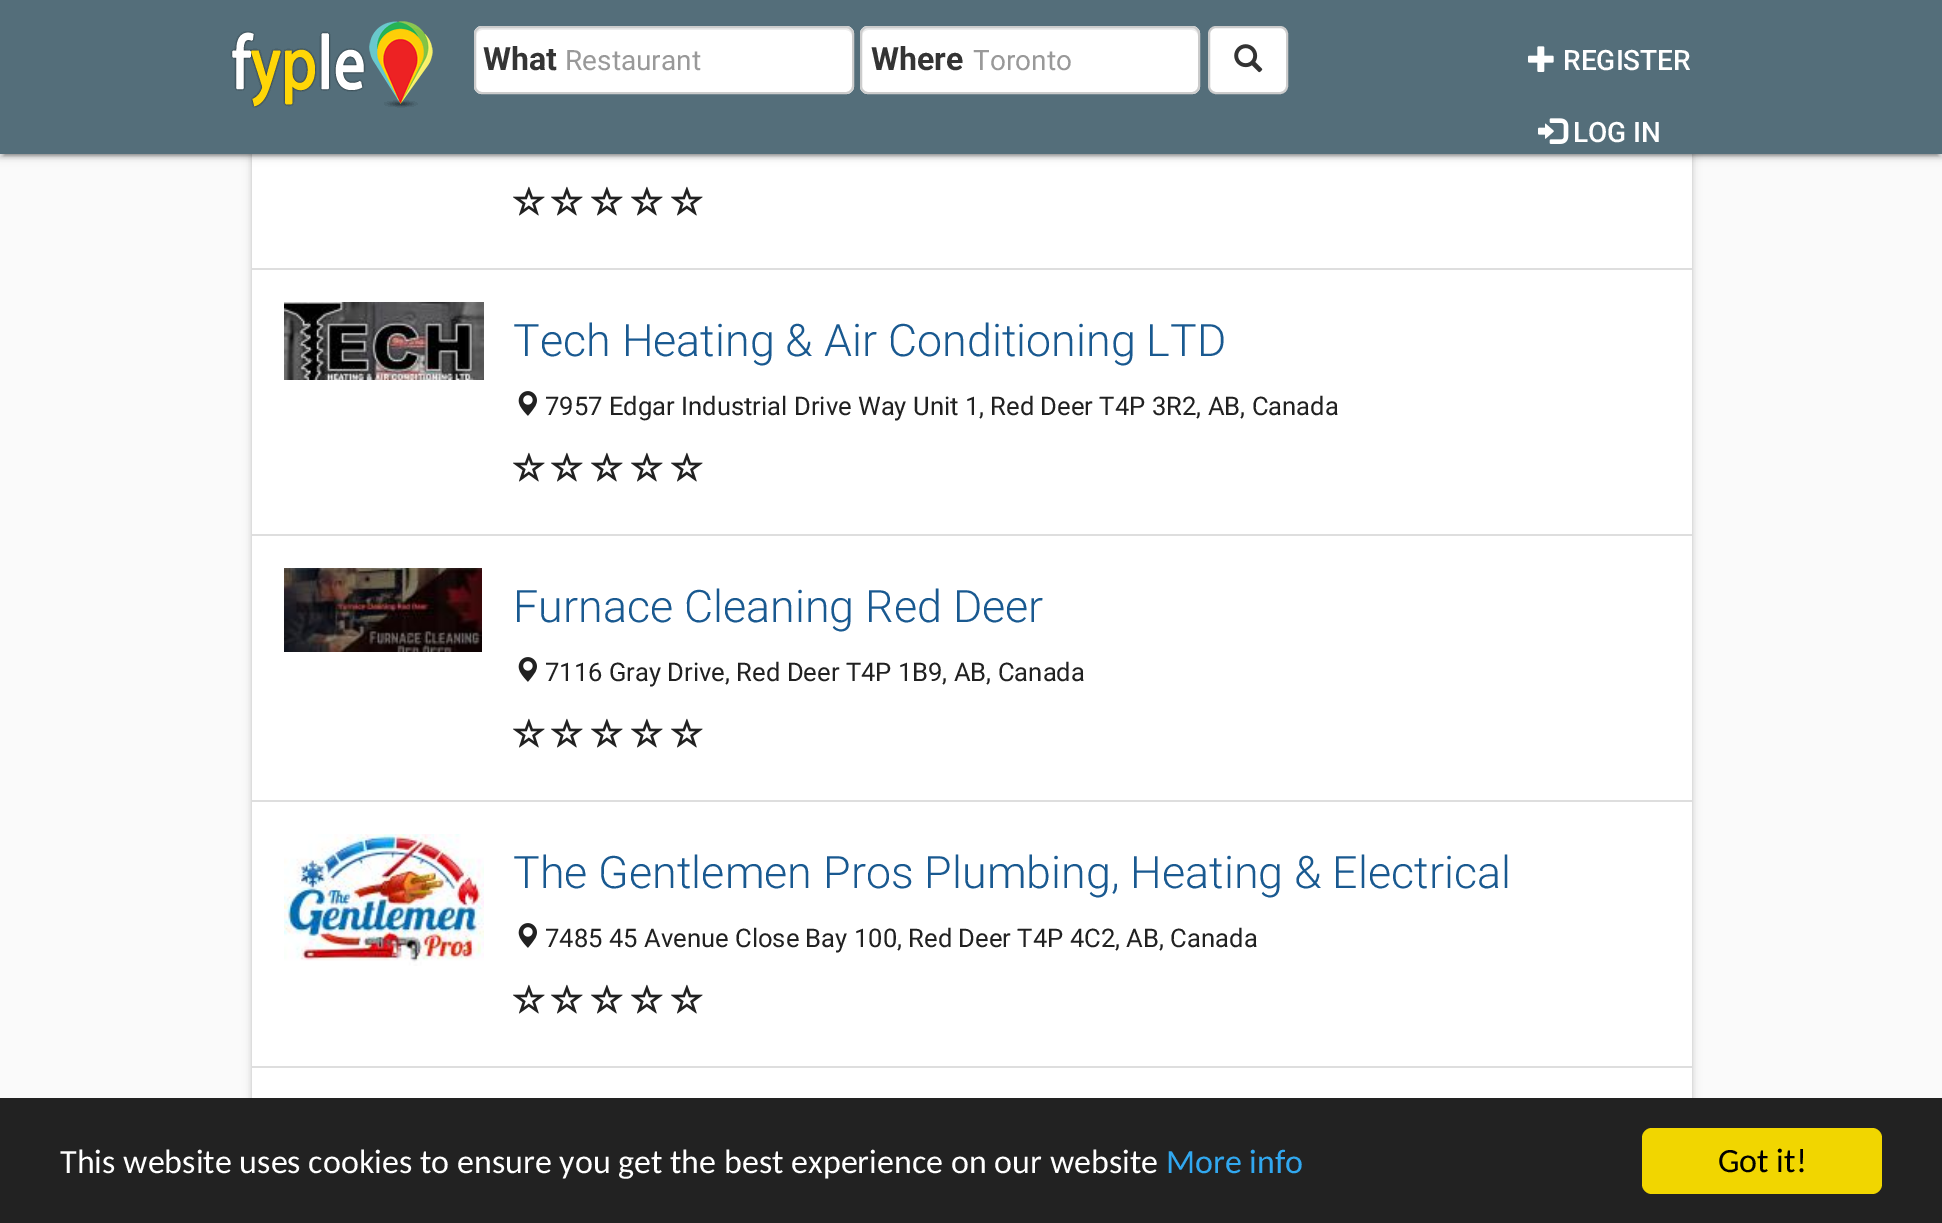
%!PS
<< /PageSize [1942 1223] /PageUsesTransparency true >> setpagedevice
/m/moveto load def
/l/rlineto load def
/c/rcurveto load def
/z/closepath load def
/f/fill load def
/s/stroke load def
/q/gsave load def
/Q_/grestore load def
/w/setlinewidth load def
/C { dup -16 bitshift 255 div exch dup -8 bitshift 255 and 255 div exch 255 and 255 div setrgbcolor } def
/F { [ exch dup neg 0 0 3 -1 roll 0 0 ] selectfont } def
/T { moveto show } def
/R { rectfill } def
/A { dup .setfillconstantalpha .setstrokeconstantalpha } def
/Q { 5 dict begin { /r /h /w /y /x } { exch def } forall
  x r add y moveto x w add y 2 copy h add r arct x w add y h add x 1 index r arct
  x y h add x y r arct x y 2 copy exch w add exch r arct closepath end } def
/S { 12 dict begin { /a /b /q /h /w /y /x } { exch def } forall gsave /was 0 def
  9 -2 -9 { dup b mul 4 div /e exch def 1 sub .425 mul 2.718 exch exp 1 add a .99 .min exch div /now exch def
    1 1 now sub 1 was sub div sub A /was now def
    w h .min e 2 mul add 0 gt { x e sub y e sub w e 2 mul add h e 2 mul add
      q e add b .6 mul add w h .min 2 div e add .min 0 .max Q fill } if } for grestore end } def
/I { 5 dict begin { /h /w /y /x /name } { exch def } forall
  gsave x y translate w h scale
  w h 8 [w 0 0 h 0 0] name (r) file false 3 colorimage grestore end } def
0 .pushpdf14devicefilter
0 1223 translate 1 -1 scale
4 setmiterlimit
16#FAFAFA C
0 0 1942 1223 R
16#000000 C
252 -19 1440 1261 4 5 .12 S
252 -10 1440 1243 4 2 .14 S
16#FFFFFF C
252 154 1440 944 R
16#000000 C
0 2 1942 154 0 5 .12 S
4 10 1934 146 0 1 .2 S
0 4 1942 154 0 2 .14 S
16#546E7A C
0 0 1942 154 R
(1.rgb) 230 21 203 87 I
16#FFFFFF C
474 26 380 68 8 Q f
16#ECECEC C
482 30 m 364 0 l 3 0 6 3 6 6 c 0 -4 -1 -8 -6 -8 c -364 0 l -5 0 -6 4 -6 8 c 0 -3 3 -6 6 -6 c z f
16#CCCCCC C
2 w
475 27 378 66 7 Q s
/Roboto-Bold 32 F
16#343434 C
(What) 483 70 T
/Roboto-Regular 28 F
16#999999 C
(Restaurant) 565 70 T
16#FFFFFF C
860 26 340 68 8 Q f
16#ECECEC C
868 30 m 324 0 l 3 0 6 3 6 6 c 0 -2 l 0 -3 -3 -6 -6 -6 c -324 0 l -3 0 -6 3 -6 6 c 0 2 l 0 -3 3 -6 6 -6 c z f
16#CCCCCC C
861 27 338 66 7 Q s
/Roboto-Bold 32 F
16#343434 C
(Where) 871 70 T
/Roboto-Regular 28 F
16#999999 C
(Toronto) 973 70 T
16#FFFFFF C
1209 27 78 66 7 Q q f Q_
16#CCCCCC C
s
(2.rgb) 1234 44 29 29 I
(3.rgb) 1528 46 26 26 I
/Roboto-Medium 28 F
16#FFFFFF C
(REGISTER) 1563 70 T
(4.rgb) 1538 118 31 26 I
(LOG IN) 1573 142 T
16#DEDEDE C
252 268 1440 2 R
(5.rgb) 513 186 32 30 I
(5.rgb) 551 186 32 30 I
(5.rgb) 591 186 32 30 I
(5.rgb) 631 186 32 30 I
(5.rgb) 671 186 32 30 I
252 534 1440 2 R
(6.rgb) 284 302 200 78 I
/Roboto-Light 44.8 F
16#195990 C
(Tech Heating & Air Conditioning LTD) 513 356 T
(7.rgb) 518 391 19 25 I
/Roboto-Regular 25.6 F
16#212121 C
(7957 Edgar Industrial Drive Way Unit 1, Red Deer T4P 3R2, AB, Canada) 545 415 T
(5.rgb) 513 452 32 30 I
(5.rgb) 551 452 32 30 I
(5.rgb) 591 452 32 30 I
(5.rgb) 631 452 32 30 I
(5.rgb) 671 452 32 30 I
16#DEDEDE C
252 800 1440 2 R
(8.rgb) 284 568 198 84 I
/Roboto-Light 44.8 F
16#195990 C
(Furnace Cleaning Red Deer) 513 622 T
(7.rgb) 518 657 19 25 I
/Roboto-Regular 25.6 F
16#212121 C
(7116 Gray Drive, Red Deer T4P 1B9, AB, Canada) 545 681 T
(5.rgb) 513 718 32 30 I
(5.rgb) 551 718 32 30 I
(5.rgb) 591 718 32 30 I
(5.rgb) 631 718 32 30 I
(5.rgb) 671 718 32 30 I
16#DEDEDE C
252 1066 1440 2 R
(9.rgb) 284 834 200 132 I
/Roboto-Light 44.8 F
16#195990 C
(The Gentlemen Pros Plumbing, Heating & Electrical) 513 888 T
(7.rgb) 518 923 19 25 I
/Roboto-Regular 25.6 F
16#212121 C
(7485 45 Avenue Close Bay 100, Red Deer T4P 4C2, AB, Canada) 545 947 T
(5.rgb) 513 984 32 30 I
(5.rgb) 551 984 32 30 I
(5.rgb) 591 984 32 30 I
(5.rgb) 631 984 32 30 I
(5.rgb) 671 984 32 30 I
16#222222 C
0 1098 1942 125 R
/Carlito-Regular 34 F
16#FFFFFF C
(This website uses cookies to ensure you get the best experience on our website) 60 1173 T
16#31A8F0 C
(More info) 1166 1173 T
16#F1D600 C
1642 1128 240 66 10 Q f
16#000000 C
(Got it!) 1718 1172 T
.poppdf14devicefilter showpage
